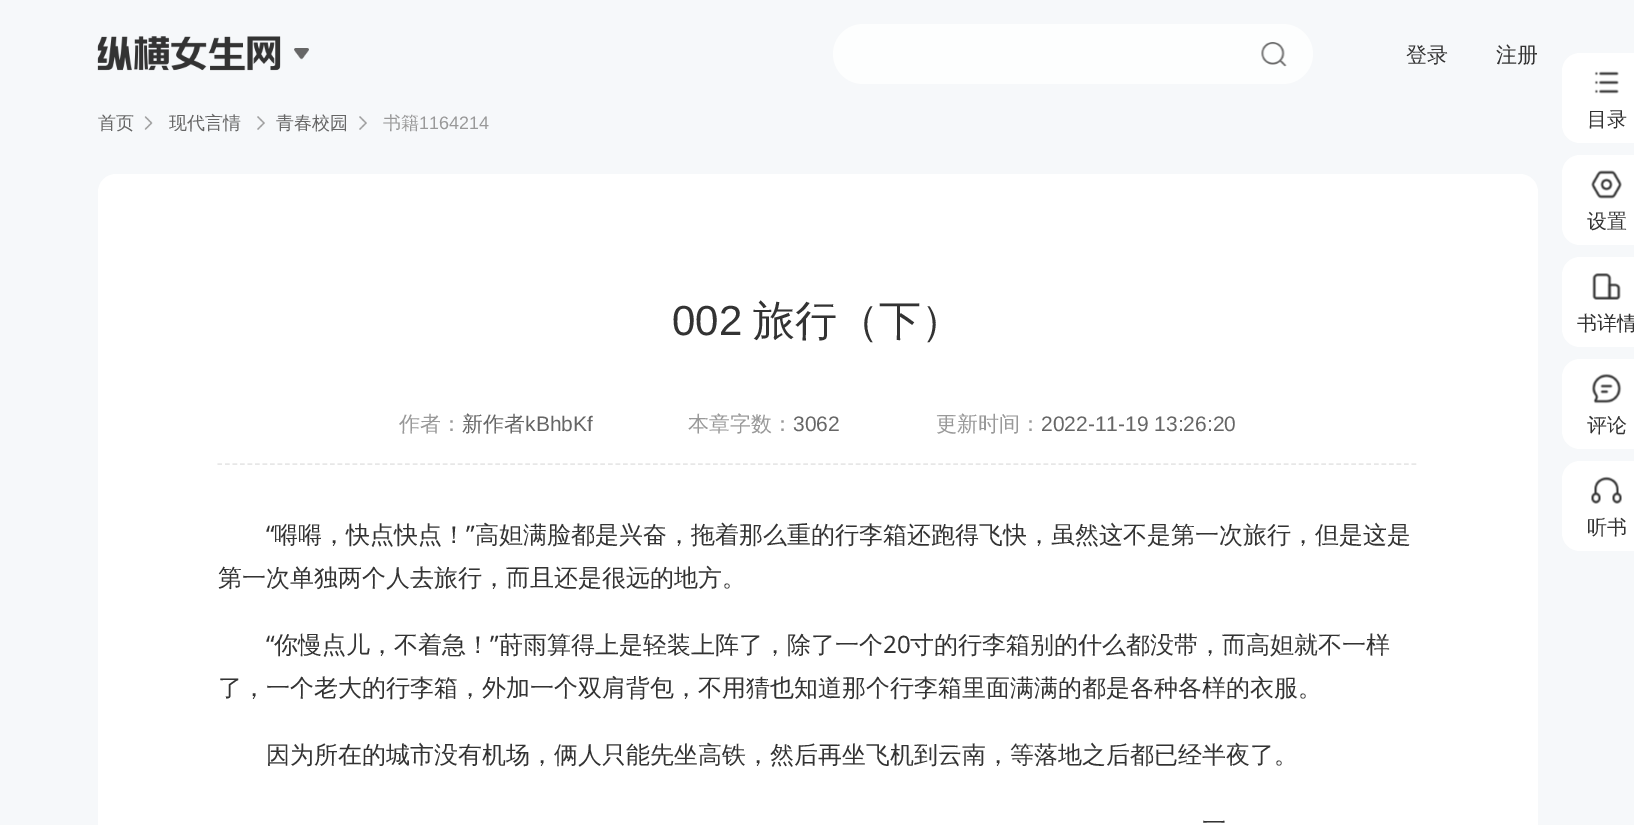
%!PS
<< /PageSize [1634 825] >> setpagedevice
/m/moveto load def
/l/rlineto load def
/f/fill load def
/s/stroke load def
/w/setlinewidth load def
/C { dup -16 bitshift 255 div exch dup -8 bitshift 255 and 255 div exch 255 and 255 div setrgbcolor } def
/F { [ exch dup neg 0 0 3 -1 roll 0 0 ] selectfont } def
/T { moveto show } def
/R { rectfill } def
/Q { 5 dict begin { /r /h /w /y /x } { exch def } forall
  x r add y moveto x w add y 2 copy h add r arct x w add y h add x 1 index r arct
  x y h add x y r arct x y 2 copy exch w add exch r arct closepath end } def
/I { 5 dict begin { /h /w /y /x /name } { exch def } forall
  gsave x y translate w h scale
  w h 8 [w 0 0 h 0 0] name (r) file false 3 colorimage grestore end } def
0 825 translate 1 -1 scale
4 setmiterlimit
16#F6F8FA C
0 0 1634 825 R
(1.rgb) 97 36 184 35 I
(2.rgb) 294 48 15 12 I
16#FDFEFE C
833 24 480 60 30 Q f
(3.rgb) 1261 42 26 25 I
/WenQuanYiZenHei-Medium 21 F
16#333333 C
(登录) 1406 62 T
(注册) 1496 62 T
/WenQuanYiZenHei-Medium 18 F
16#666666 C
(首页) 98 129 T
(4.rgb) 144 116 9 14 I
(现代言情) 169 129 T
(5.rgb) 257 116 8 14 I
(青春校园) 276 129 T
(6.rgb) 359 116 8 14 I
16#999999 C
(书籍) 383 129 T
/LiberationSans-Regular 18 F
(1164214) 419 129 T
16#FFFFFF C
1562 53 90 90 18 Q f
(7.rgb) 1594 71 25 23 I
/WenQuanYiZenHei-Medium 20 F
16#333333 C
(目录) 1587 126 T
16#FFFFFF C
1562 155 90 90 18 Q f
(8.rgb) 1591 170 31 29 I
16#333333 C
(设置) 1587 228 T
16#FFFFFF C
1562 257 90 90 18 Q f
(9.rgb) 1592 273 29 27 I
16#333333 C
(书详情) 1577 330 T
16#FFFFFF C
1562 359 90 90 18 Q f
(10.rgb) 1591 373 31 31 I
16#333333 C
(评论) 1587 432 T
16#FFFFFF C
1562 461 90 90 18 Q f
(11.rgb) 1591 476 31 28 I
16#333333 C
(听书) 1587 534 T
16#FFFFFF C
98 174 1440 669 18 Q f
/LiberationSans-Regular 42 F
16#333333 C
(002) 672 335 T
/WenQuanYiZenHei-Medium 42 F
(旅行（下）) 753 335 T
/WenQuanYiZenHei-Medium 21 F
16#999999 C
(作者：) 399 431 T
16#666666 C
(新作者) 462 431 T
/LiberationSans-Regular 21 F
(kBhbKf) 525 431 T
/WenQuanYiZenHei-Medium 21 F
16#999999 C
(本章字数：) 688 431 T
/LiberationSans-Regular 21 F
16#666666 C
(3062) 793 431 T
/WenQuanYiZenHei-Medium 21 F
16#999999 C
(更新时间：) 936 431 T
/LiberationSans-Regular 21 F
16#666666 C
(2022-11-19 13:26:20) 1041 431 T
16#E7E7E7 C
1.5 w
[4.5 3.01] 0 setdash
217.5 464 m 1200 0 l s
/NotoSans-Regular 24 F
16#333333 C
(“) 266 543 T
/WenQuanYiZenHei-Medium 24 F
(嘚嘚，快点快点！) 274 543 T
/NotoSans-Regular 24 F
(”) 466 543 T
/WenQuanYiZenHei-Medium 24 F
(高妲满脸都是兴奋，拖着那么重的行李箱还跑得飞快，虽然这不是第一次旅行，但是这是) 475 543 T
(第一次单独两个人去旅行，而且还是很远的地方。) 218 586 T
/NotoSans-Regular 24 F
(“) 266 653 T
/WenQuanYiZenHei-Medium 24 F
(你慢点儿，不着急！) 274 653 T
/NotoSans-Regular 24 F
(”) 490 653 T
/WenQuanYiZenHei-Medium 24 F
(莳雨算得上是轻装上阵了，除了一个) 499 653 T
/NotoSans-Regular 24 F
(20) 883 653 T
/WenQuanYiZenHei-Medium 24 F
(寸的行李箱别的什么都没带，而高妲就不一样) 910 653 T
(了，一个老大的行李箱，外加一个双肩背包，不用猜也知道那个行李箱里面满满的都是各种各样的衣服。) 218 696 T
(因为所在的城市没有机场，俩人只能先坐高铁，然后再坐飞机到云南，等落地之后都已经半夜了。) 266 763 T
(一) 1202 831 T
showpage
